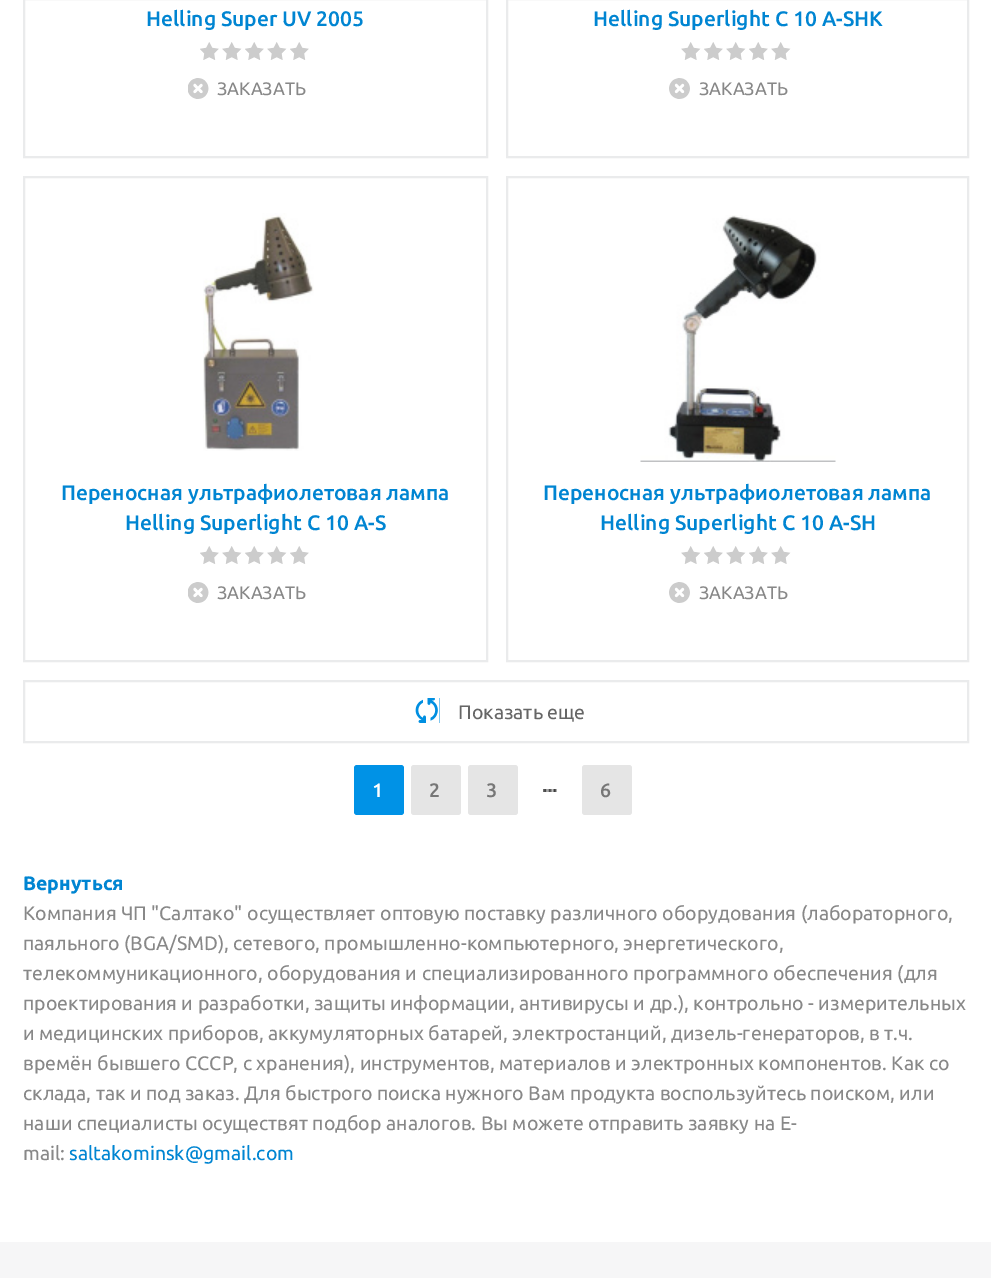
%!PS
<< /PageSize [991 1278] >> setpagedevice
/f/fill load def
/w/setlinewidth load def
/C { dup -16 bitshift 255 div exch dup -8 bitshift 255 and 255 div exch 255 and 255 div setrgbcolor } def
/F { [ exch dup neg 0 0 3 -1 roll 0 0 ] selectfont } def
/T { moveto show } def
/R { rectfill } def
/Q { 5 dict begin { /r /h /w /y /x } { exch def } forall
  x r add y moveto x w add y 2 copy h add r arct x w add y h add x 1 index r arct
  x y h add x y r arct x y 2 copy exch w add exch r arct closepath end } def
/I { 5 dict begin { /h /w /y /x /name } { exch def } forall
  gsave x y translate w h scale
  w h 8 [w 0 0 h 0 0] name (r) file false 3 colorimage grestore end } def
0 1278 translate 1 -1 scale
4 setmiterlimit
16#F6F6F7 C
0 0 991 1278 R
16#FFFFFF C
0 0 991 1242 R
16#EAEBEC C
2 w
24 -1 463 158 rectstroke
/Ubuntu-Medium 21 F
16#0085D2 C
(Helling Super UV 2005) 146 26 T
(1.rgb) 200 42 19 18 I
(2.rgb) 222 42 20 18 I
(3.rgb) 245 42 19 18 I
(2.rgb) 267 42 20 18 I
(1.rgb) 290 42 19 18 I
(4.rgb) 188 78 21 21 I
/Ubuntu-Regular 18 F
16#888888 C
(ЗАКАЗАТЬ) 217 95 T
16#EAEBEC C
507 -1 461 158 rectstroke
/Ubuntu-Medium 21 F
16#0085D2 C
(Helling Superlight C 10 A-SHК) 593 26 T
(2.rgb) 681 42 20 18 I
(1.rgb) 704 42 19 18 I
(2.rgb) 726 42 20 18 I
(5.rgb) 749 42 19 18 I
(2.rgb) 771 42 20 18 I
(6.rgb) 669 78 21 21 I
/Ubuntu-Regular 18 F
16#888888 C
(ЗАКАЗАТЬ) 699 95 T
16#EAEBEC C
24 177 463 484 rectstroke
(7.rgb) 203 213 111 238 I
/Ubuntu-Medium 21 F
16#0085D2 C
(Переносная ультрафиолетовая лампа) 61 500 T
(Helling Superlight C 10 A-S) 125 530 T
(1.rgb) 200 546 19 18 I
(2.rgb) 222 546 20 18 I
(3.rgb) 245 546 19 18 I
(2.rgb) 267 546 20 18 I
(1.rgb) 290 546 19 18 I
(4.rgb) 188 582 21 21 I
/Ubuntu-Regular 18 F
16#888888 C
(ЗАКАЗАТЬ) 217 599 T
16#EAEBEC C
507 177 461 484 rectstroke
(8.rgb) 640 215 196 247 I
/Ubuntu-Medium 21 F
16#0085D2 C
(Переносная ультрафиолетовая лампа) 543 500 T
(Helling Superlight C 10 A-SH) 600 530 T
(2.rgb) 681 546 20 18 I
(1.rgb) 704 546 19 18 I
(2.rgb) 726 546 20 18 I
(5.rgb) 749 546 19 18 I
(2.rgb) 771 546 20 18 I
(6.rgb) 669 582 21 21 I
/Ubuntu-Regular 18 F
16#888888 C
(ЗАКАЗАТЬ) 699 599 T
16#EAEBEC C
24 681 944 61 rectstroke
16#008FE1 C
415 698 25 25 R
(9.rgb) 414 698 26 25 I
/Ubuntu-Regular 19.5 F
16#666666 C
(Показать еще) 458 719 T
16#0092E6 C
354 765 50 50 3 Q f
/Ubuntu-Medium 19.5 F
16#FFFFFF C
(1) 372 797 T
16#E5E5E5 C
411 765 50 50 3 Q f
16#777777 C
(2) 429 797 T
16#E5E5E5 C
468 765 50 50 3 Q f
16#777777 C
(3) 486 797 T
(10.rgb) 543 789 14 3 I
16#E5E5E5 C
582 765 50 50 3 Q f
16#777777 C
(6) 600 797 T
/Ubuntu-Bold 19.5 F
16#0085D2 C
(Вернуться) 23 890 T
/Ubuntu-Regular 19.5 F
16#888888 C
(Компания ЧП "Салтако" осуществляет оптовую поставку различного оборудования \(лабораторного,) 23 920 T
(паяльного \(BGA/SMD\), сетевого, промышленно-компьютерного, энергетического,) 23 950 T
(телекоммуникационного, оборудования и специализированного программного обеспечения \(для) 23 980 T
(проектирования и разработки, защиты информации, антивирусы и др.\), контрольно - измерительных) 23 1010 T
(и медицинских приборов, аккумуляторных батарей, электростанций, дизель-генераторов, в т.ч.) 23 1040 T
(времён бывшего СССР, с хранения\), инструментов, материалов и электронных компонентов. Как со) 23 1070 T
(склада, так и под заказ. Для быстрого поиска нужного Вам продукта воспользуйтесь поиском, или) 23 1100 T
(наши специалисты осуществят подбор аналогов. Вы можете отправить заявку на E-) 23 1130 T
(mail:) 23 1160 T
16#0085D2 C
(saltakominsk@gmail.com) 69 1160 T
showpage
